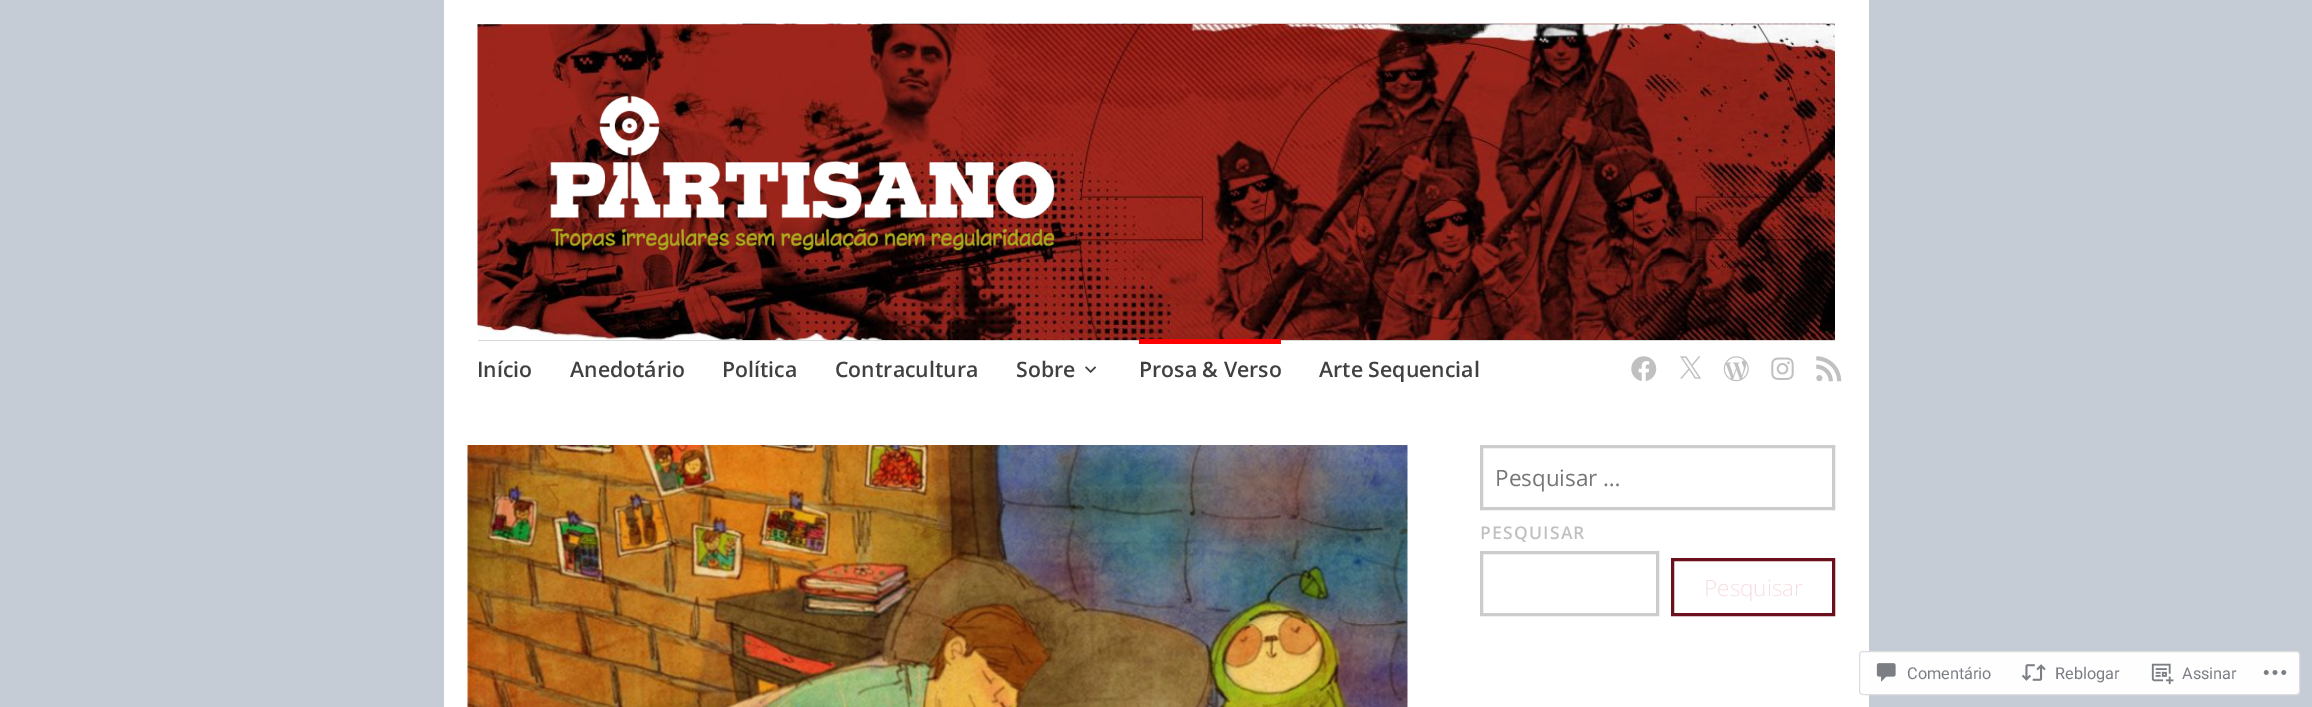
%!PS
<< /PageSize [2312 707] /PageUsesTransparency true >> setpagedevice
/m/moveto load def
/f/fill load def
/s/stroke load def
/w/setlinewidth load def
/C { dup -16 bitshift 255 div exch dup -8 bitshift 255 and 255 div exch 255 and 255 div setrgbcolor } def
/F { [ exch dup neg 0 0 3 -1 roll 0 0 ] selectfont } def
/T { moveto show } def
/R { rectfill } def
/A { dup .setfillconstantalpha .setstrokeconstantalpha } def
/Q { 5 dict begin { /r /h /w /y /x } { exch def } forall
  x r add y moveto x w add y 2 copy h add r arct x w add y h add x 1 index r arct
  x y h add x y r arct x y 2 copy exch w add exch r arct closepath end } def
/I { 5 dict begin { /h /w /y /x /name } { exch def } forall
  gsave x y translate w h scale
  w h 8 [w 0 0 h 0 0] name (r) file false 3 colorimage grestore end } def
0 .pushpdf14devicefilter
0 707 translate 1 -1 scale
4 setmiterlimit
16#C5CCD6 C
0 0 2312 707 R
16#FFFFFF C
444 0 1425 707 R
(1.rgb) 477 23 1358 317 I
(2.rgb) 550 95 505 156 I
16#D9D9D9 C
478 340 1357 1 R
/OpenSans-SemiBold 21.25 F
16#404040 C
(Início) 477 377 T
(Anedotário) 570 377 T
(Política) 722 377 T
(Contracultura) 835 377 T
(Sobre) 1016 377 T
(3.rgb) 1085 366 12 7 I
16#FF0000 C
1139 339 142 5 R
16#404040 C
(Prosa & Verso) 1139 377 T
(Arte Sequencial) 1319 377 T
(4.rgb) 1631 356 26 25 I
(5.rgb) 1680 356 21 23 I
(6.rgb) 1723 356 26 26 I
(7.rgb) 1771 357 23 23 I
(8.rgb) 1816 356 26 26 I
(9.rgb) 467 445 941 262 I
16#CCCCCC C
3 w
1481.5 446.5 352 62 rectstroke
/OpenSans-Regular 22.5 F
16#757575 C
(Pesquisar …) 1495 486 T
/OpenSans-SemiBold 17.5 F
16#C0C0C0 C
1480 539 m 1.25 0 (PESQUISAR) ashow
16#CCCCCC C
1481.5 552.5 176 62 rectstroke
16#6B101C C
1672.5 559.5 161 55 rectstroke
/OpenSans-Light 22.5 F
16#F7DDE2 C
(Pesquisar) 1704 596 T
0.98 A
16#FFFFFF C
1859 651 441 44 4 Q f
16#DCDCDE C
1 w
1859.5 651.5 440 43 3.5 Q s
1 A
(10.rgb) 1876 663 20 19 I
/Roboto-Regular 16.25 F
16#7A7E84 C
(Comentário) 1907 679 T
(11.rgb) 2021 664 25 17 I
(Reblogar) 2055 679 T
(12.rgb) 2151 663 23 22 I
(Assinar) 2182 679 T
(13.rgb) 2263 670 24 5 I
.poppdf14devicefilter showpage
